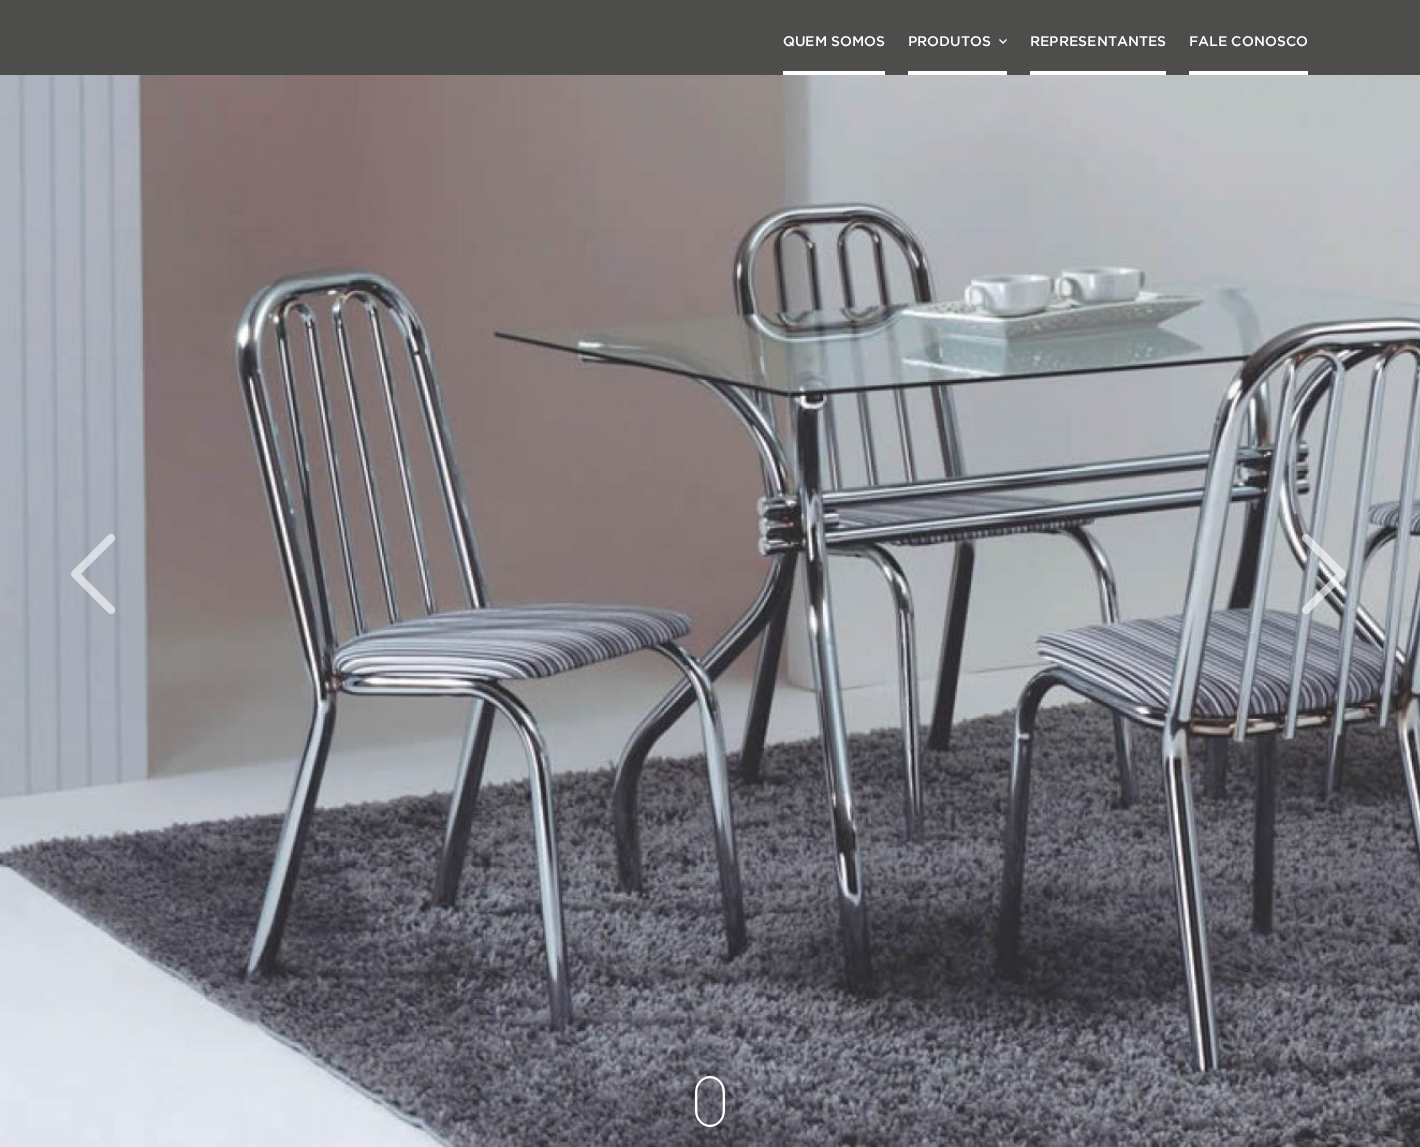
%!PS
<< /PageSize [1420 1147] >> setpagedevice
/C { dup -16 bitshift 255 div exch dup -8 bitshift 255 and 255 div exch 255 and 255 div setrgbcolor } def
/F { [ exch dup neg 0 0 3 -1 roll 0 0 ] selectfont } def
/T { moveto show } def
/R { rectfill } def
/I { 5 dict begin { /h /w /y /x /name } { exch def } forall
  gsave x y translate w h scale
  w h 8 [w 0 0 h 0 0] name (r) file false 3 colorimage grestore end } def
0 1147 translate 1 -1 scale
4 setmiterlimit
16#FFFFFF C
0 0 1420 1147 R
16#4D4D4B C
0 0 1420 75 R
16#FFFFFF C
783 71 102 4 R
/Gotham-Medium 14 F
(QUEM SOMOS) 783 46 T
(1.rgb) 999 39 8 5 I
908 71 99 4 R
(PRODUTOS) 908 46 T
1030 71 136 4 R
(REPRESENTANTES) 1030 46 T
1189 71 119 4 R
(FALE CONOSCO) 1189 46 T
(2.rgb) 0 75 1420 1072 I
(3.rgb) 71 534 45 80 I
(4.rgb) 1301 534 45 80 I
(5.rgb) 695 1076 30 51 I
showpage
